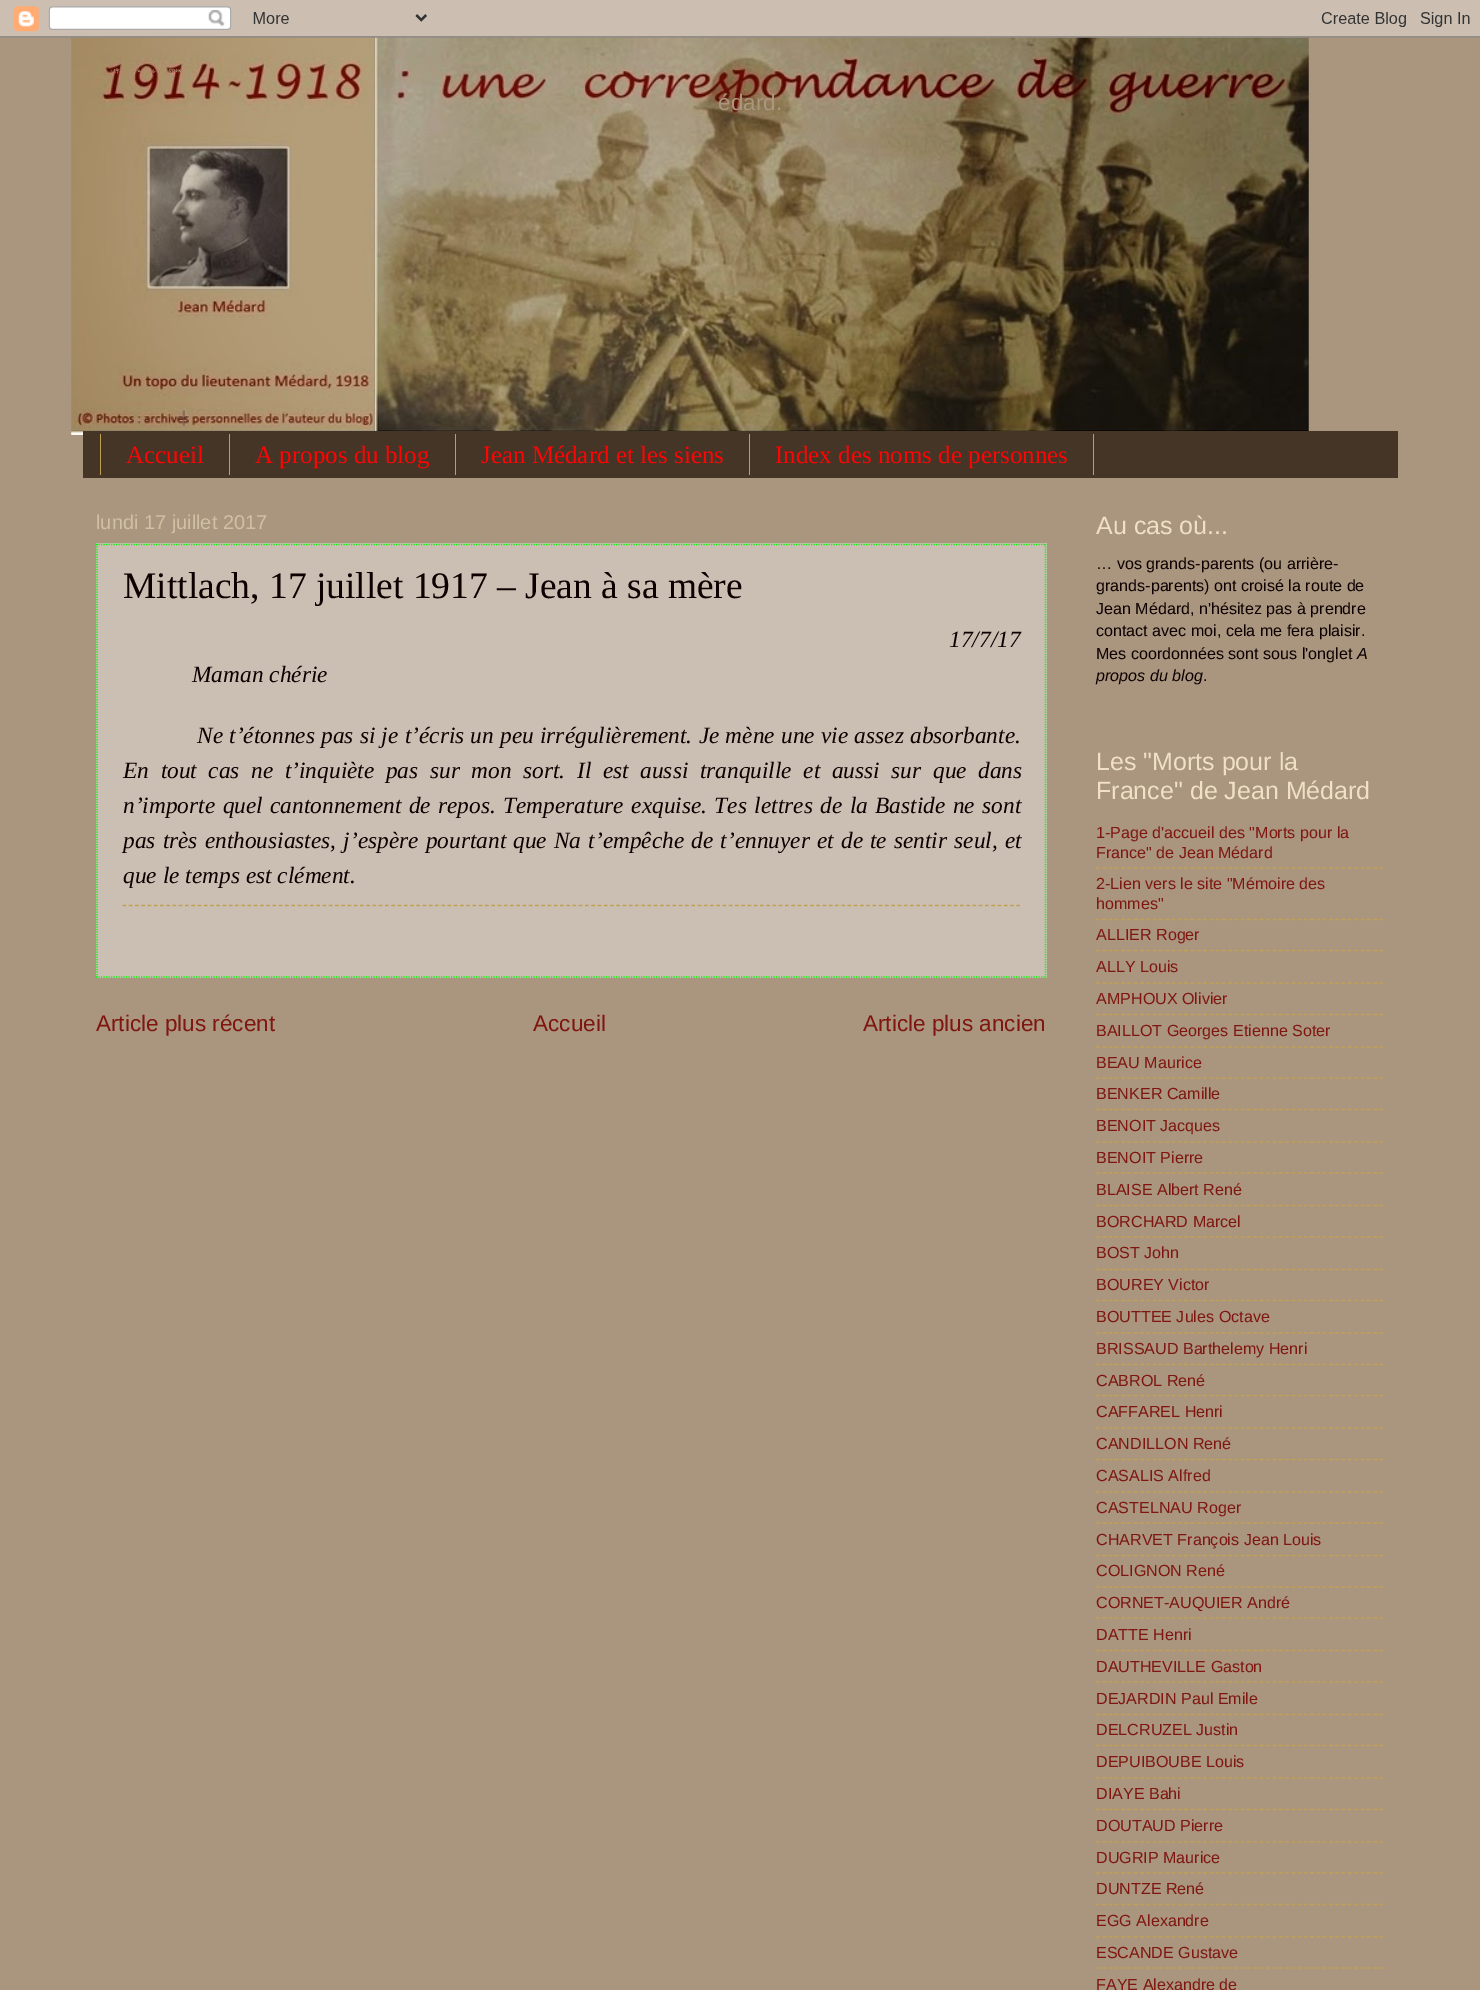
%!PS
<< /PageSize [1480 1990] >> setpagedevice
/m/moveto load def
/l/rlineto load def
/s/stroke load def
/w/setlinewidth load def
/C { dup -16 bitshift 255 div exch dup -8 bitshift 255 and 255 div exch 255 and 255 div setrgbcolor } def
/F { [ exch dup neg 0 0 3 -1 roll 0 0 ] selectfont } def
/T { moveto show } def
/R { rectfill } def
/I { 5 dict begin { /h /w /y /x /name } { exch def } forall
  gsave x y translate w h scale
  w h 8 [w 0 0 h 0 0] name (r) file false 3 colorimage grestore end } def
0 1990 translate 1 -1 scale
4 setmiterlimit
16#AA957F C
0 0 1480 1990 R
(2.rgb) 71 37 1238 398 I
(1.rgb) 0 0 1480 38 I
/ReenieBeanie-Bold 10 F
16#B29077 C
(-19) 110 73 T
(u) 137 73 T
(c) 152 73 T
(spon) 168 73 T
/LiberationSans-Regular 22.5 F
16#AA957F C
(édard.) 718 110 T
16#443526 C
83 431 1315 47 R
16#C0A154 C
229 434 1 41 R
100 434 1 41 R
/LiberationSerif-Regular 25 F
16#FF0404 C
(Accueil) 126 463 T
16#C0A154 C
455 434 1 41 R
16#FF0404 C
(A propos du blog) 255 463 T
16#C0A154 C
749 434 1 41 R
16#FF0404 C
(Jean Médard et les siens) 481 463 T
16#C0A154 C
1093 434 1 41 R
16#FF0404 C
(Index des noms de personnes) 775 463 T
/LiberationSans-Regular 20 F
16#D1C0A4 C
(lundi 17 juillet 2017) 96 529 T
16#CBBFB3 C
96 543 951 435 R
16#0AF40A C
1.2 w
[1.25 1.25] 0 setdash
96 544.5 m 950 0 l s
1045.5 544 m 0 433.5 l s
96 977 m 950 0 l s
97 544 m 0 433.5 l s
/LiberationSerif-Regular 37.5 F
16#0C0100 C
(Mittlach, 17 juillet 1917 – Jean à sa mère) 123 598 T
/LiberationSerif-Italic 23.35 F
(17/7/17) 949 647 T
(Maman chérie) 192 682 T
197 743 m .4 0 32 (Ne t’étonnes pas si je t’écris un peu irrégulièrement. Je mène une vie assez absorbante.) widthshow
123 778 m 5.75 0 32 (En tout cas ne t’inquiète pas sur mon sort. Il est aussi tranquille et aussi sur que dans) widthshow
123 813 m 1.6 0 32 (n’importe quel cantonnement de repos. Temperature exquise. Tes lettres de la Bastide ne sont) widthshow
123 848 m 1.25 0 32 (pas très enthousiastes, j’espère pourtant que Na t’empêche de t’ennuyer et de te sentir seul, et) widthshow
(que le temps est clément.) 123 883 T
16#C0A154 C
[3.75 2.5] 0 setdash
122.5 905.5 m 897.5 0 l s
/LiberationSans-Regular 22.5 F
16#7F1710 C
(Article plus récent) 96 1031 T
(Accueil) 533 1031 T
(Article plus ancien) 863 1031 T
/LiberationSans-Regular 25 F
16#F0E0C5 C
(Au cas où...) 1096 534 T
/LiberationSans-Regular 16.1 F
16#0C0100 C
(… vos grands-parents \(ou arrière-) 1096 569 T
(grands-parents\) ont croisé la route de) 1096 591 T
(Jean Médard, n'hésitez pas à prendre) 1096 614 T
(contact avec moi, cela me fera plaisir.) 1096 636 T
(Mes coordonnées sont sous l'onglet) 1096 659 T
/LiberationSans-Italic 16.1 F
(A) 1357 659 T
(propos du blog) 1096 681 T
/LiberationSans-Regular 16.1 F
(.) 1203 681 T
/LiberationSans-Regular 25 F
16#F0E0C5 C
(Les "Morts pour la) 1096 770 T
(France" de Jean Médard) 1096 799 T
/LiberationSans-Regular 16.1 F
16#7F1710 C
(1-Page d'accueil des "Morts pour la) 1096 838 T
(France" de Jean Médard) 1096 858 T
16#C0A154 C
[3.75 2.55] 0 setdash
1096 868 m 288 0 l s
16#7F1710 C
(2-Lien vers le site "Mémoire des) 1096 889 T
(hommes") 1096 909 T
16#C0A154 C
1096 919.5 m 288 0 l s
16#7F1710 C
(ALLIER Roger) 1096 940 T
16#C0A154 C
1096 950.5 m 288 0 l s
16#7F1710 C
(ALLY Louis) 1096 972 T
16#C0A154 C
1096 983 m 288 0 l s
16#7F1710 C
(AMPHOUX Olivier) 1096 1004 T
16#C0A154 C
1096 1014.5 m 288 0 l s
16#7F1710 C
(BAILLOT Georges Etienne Soter) 1096 1036 T
16#C0A154 C
1096 1047 m 288 0 l s
16#7F1710 C
(BEAU Maurice) 1096 1068 T
16#C0A154 C
1096 1078 m 288 0 l s
16#7F1710 C
(BENKER Camille) 1096 1099 T
16#C0A154 C
1096 1109.5 m 288 0 l s
16#7F1710 C
(BENOIT Jacques) 1096 1131 T
16#C0A154 C
1096 1142 m 288 0 l s
16#7F1710 C
(BENOIT Pierre) 1096 1163 T
16#C0A154 C
1096 1173 m 288 0 l s
16#7F1710 C
(BLAISE Albert René) 1096 1195 T
16#C0A154 C
1096 1205.5 m 288 0 l s
16#7F1710 C
(BORCHARD Marcel) 1096 1227 T
16#C0A154 C
1096 1237 m 288 0 l s
16#7F1710 C
(BOST John) 1096 1258 T
16#C0A154 C
1096 1269.5 m 288 0 l s
16#7F1710 C
(BOUREY Victor) 1096 1290 T
16#C0A154 C
1096 1300.5 m 288 0 l s
16#7F1710 C
(BOUTTEE Jules Octave) 1096 1322 T
16#C0A154 C
1096 1333 m 288 0 l s
16#7F1710 C
(BRISSAUD Barthelemy Henri) 1096 1354 T
16#C0A154 C
1096 1364.5 m 288 0 l s
16#7F1710 C
(CABROL René) 1096 1386 T
16#C0A154 C
1096 1395.5 m 288 0 l s
16#7F1710 C
(CAFFAREL Henri) 1096 1417 T
16#C0A154 C
1096 1428 m 288 0 l s
16#7F1710 C
(CANDILLON René) 1096 1449 T
16#C0A154 C
1096 1459.5 m 288 0 l s
16#7F1710 C
(CASALIS Alfred) 1096 1481 T
16#C0A154 C
1096 1492 m 288 0 l s
16#7F1710 C
(CASTELNAU Roger) 1096 1513 T
16#C0A154 C
1096 1523 m 288 0 l s
16#7F1710 C
(CHARVET François Jean Louis) 1096 1545 T
16#C0A154 C
1096 1555.5 m 288 0 l s
16#7F1710 C
(COLIGNON René) 1096 1576 T
16#C0A154 C
1096 1587 m 288 0 l s
16#7F1710 C
(CORNET-AUQUIER André) 1096 1608 T
16#C0A154 C
1096 1618 m 288 0 l s
16#7F1710 C
(DATTE Henri) 1096 1640 T
16#C0A154 C
1096 1650.5 m 288 0 l s
16#7F1710 C
(DAUTHEVILLE Gaston) 1096 1672 T
16#C0A154 C
1096 1682 m 288 0 l s
16#7F1710 C
(DEJARDIN Paul Emile) 1096 1704 T
16#C0A154 C
1096 1714.5 m 288 0 l s
16#7F1710 C
(DELCRUZEL Justin) 1096 1735 T
16#C0A154 C
1096 1745.5 m 288 0 l s
16#7F1710 C
(DEPUIBOUBE Louis) 1096 1767 T
16#C0A154 C
1096 1778 m 288 0 l s
16#7F1710 C
(DIAYE Bahi) 1096 1799 T
16#C0A154 C
1096 1809.5 m 288 0 l s
16#7F1710 C
(DOUTAUD Pierre) 1096 1831 T
16#C0A154 C
1096 1842 m 288 0 l s
16#7F1710 C
(DUGRIP Maurice) 1096 1863 T
16#C0A154 C
1096 1873 m 288 0 l s
16#7F1710 C
(DUNTZE René) 1096 1894 T
16#C0A154 C
1096 1904.5 m 288 0 l s
16#7F1710 C
(EGG Alexandre) 1096 1926 T
16#C0A154 C
1096 1937 m 288 0 l s
16#7F1710 C
(ESCANDE Gustave) 1096 1958 T
16#C0A154 C
1096 1968 m 288 0 l s
16#7F1710 C
(FAYE Alexandre de) 1096 1990 T
showpage
